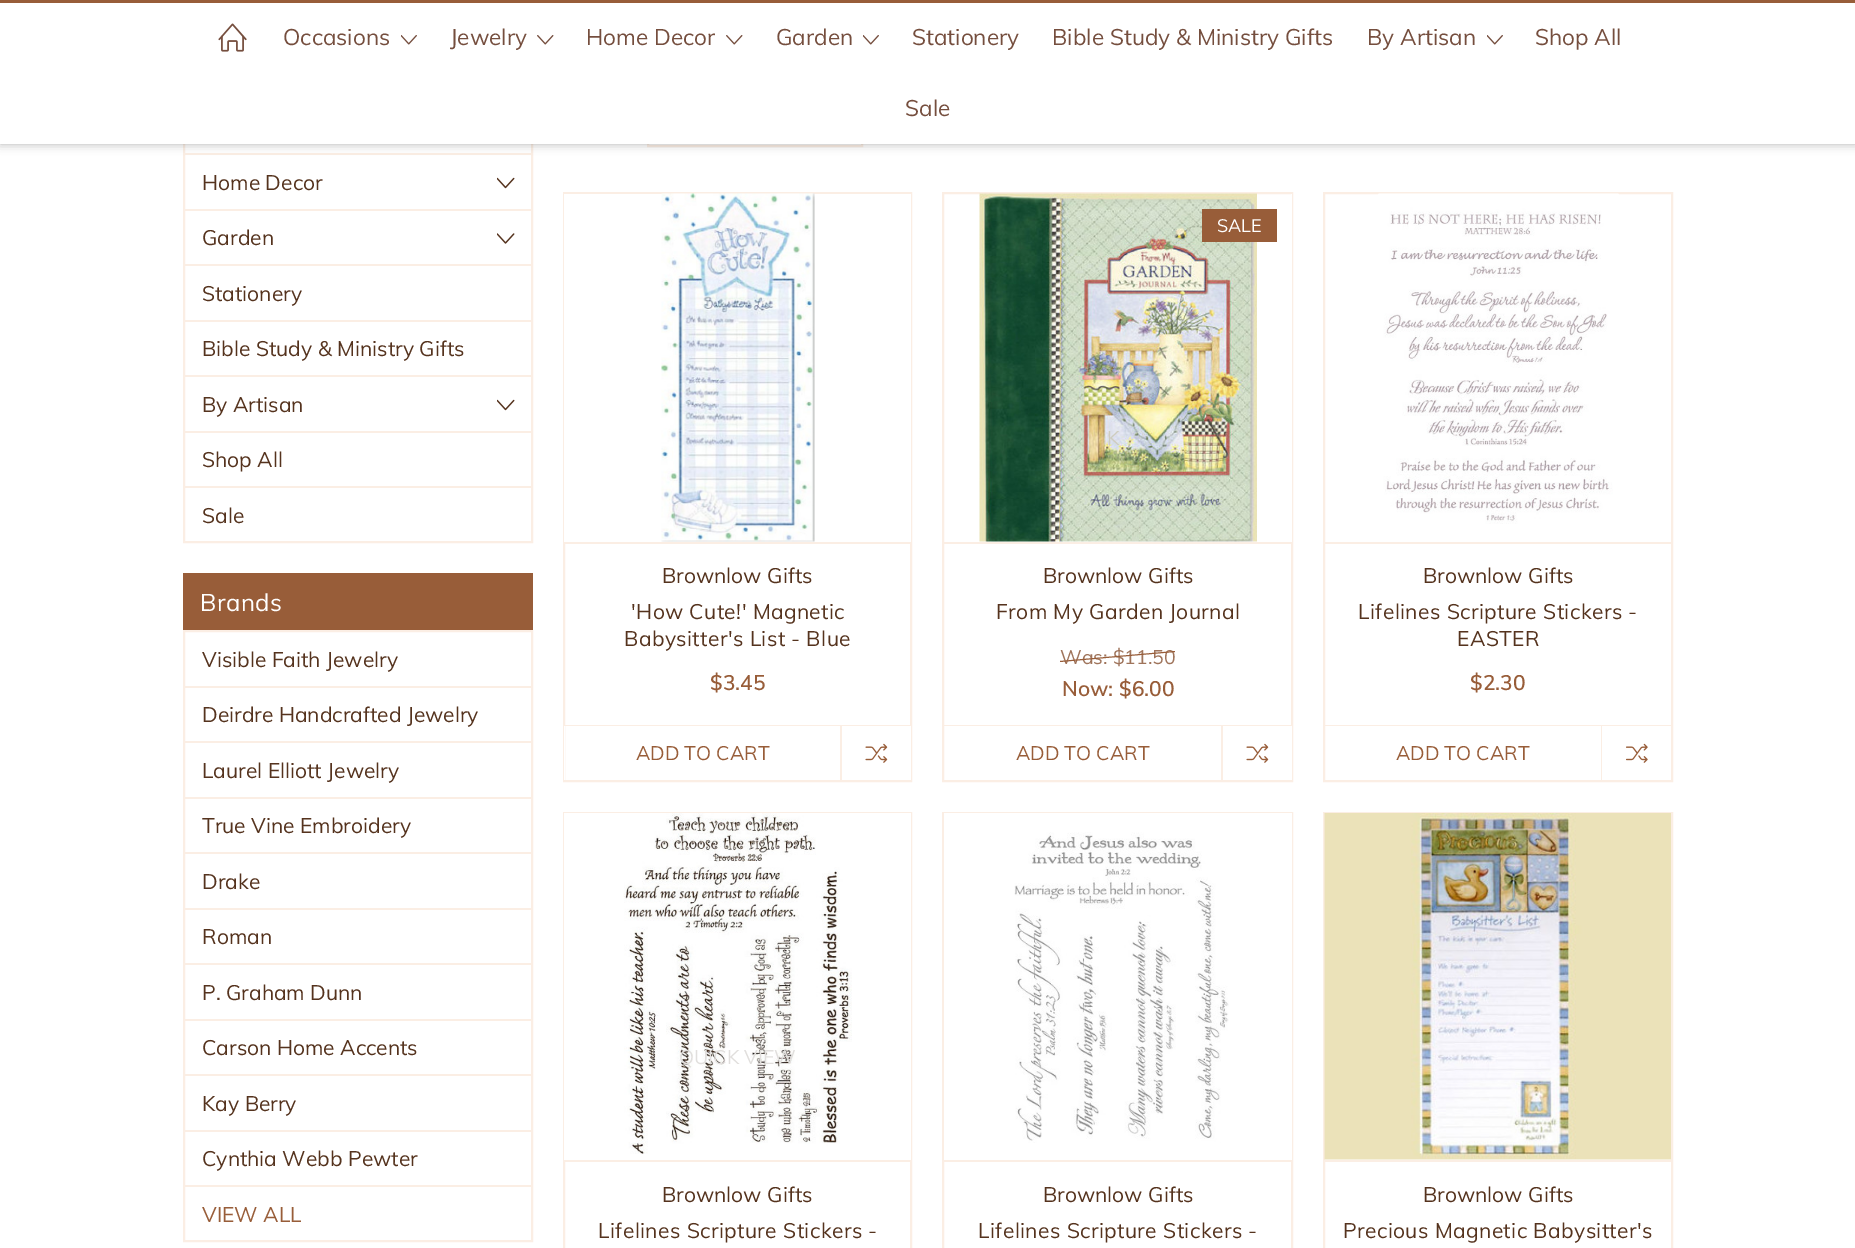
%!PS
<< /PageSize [1855 1248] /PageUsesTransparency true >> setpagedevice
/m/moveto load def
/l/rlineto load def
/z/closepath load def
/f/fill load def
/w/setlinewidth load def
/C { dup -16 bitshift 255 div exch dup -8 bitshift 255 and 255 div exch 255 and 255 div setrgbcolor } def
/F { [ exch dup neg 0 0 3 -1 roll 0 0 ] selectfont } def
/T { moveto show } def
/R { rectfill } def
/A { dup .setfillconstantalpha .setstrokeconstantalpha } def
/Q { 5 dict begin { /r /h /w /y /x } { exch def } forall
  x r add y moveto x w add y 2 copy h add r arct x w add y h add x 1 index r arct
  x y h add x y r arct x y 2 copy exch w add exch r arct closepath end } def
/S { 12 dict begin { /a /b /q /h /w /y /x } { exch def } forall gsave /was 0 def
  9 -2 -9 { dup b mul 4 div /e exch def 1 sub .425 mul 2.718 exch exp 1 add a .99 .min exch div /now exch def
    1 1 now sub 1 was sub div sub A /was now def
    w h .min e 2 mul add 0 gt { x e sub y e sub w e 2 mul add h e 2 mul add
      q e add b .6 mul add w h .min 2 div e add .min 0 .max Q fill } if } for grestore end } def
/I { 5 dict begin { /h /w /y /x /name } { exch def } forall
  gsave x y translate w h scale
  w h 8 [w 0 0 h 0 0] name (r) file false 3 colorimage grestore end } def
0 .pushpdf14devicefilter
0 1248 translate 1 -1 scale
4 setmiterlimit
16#FFFFFF C
0 0 1855 1248 R
16#FBEEE4 C
2 w
184 43 348 499 rectstroke
185 153 346 2 R
648 97 214 49 rectstroke
16#000000 C
0 0 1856 144 0 5 .3 S
16#FFFFFF C
0 3 1855 141 R
16#985D39 C
0 0 1855 3 R
(1.rgb) 218 23 29 29 I
/Muli-Regular 22.5 F
16#754E3E C
(Occasions) 283 45 T
(2.rgb) 401 35 16 10 I
(Jewelry) 450 45 T
(3.rgb) 537 35 17 10 I
(Home Decor) 586 45 T
(3.rgb) 726 35 17 10 I
(Garden) 776 45 T
(2.rgb) 863 35 16 10 I
(Stationery) 912 45 T
(Bible Study & Ministry Gifts) 1052 45 T
(By Artisan) 1367 45 T
(2.rgb) 1487 35 16 10 I
(Shop All) 1535 45 T
(Sale) 905 116 T
/Muli-Regular 21 F
16#55331E C
(Home Decor) 202 190 T
(4.rgb) 497 177 18 12 I
16#FBEEE4 C
185 209 346 2 R
16#55331E C
(Garden) 202 245 T
(5.rgb) 497 233 18 11 I
16#FBEEE4 C
185 264 346 2 R
16#55331E C
(Stationery) 202 301 T
16#FBEEE4 C
185 320 346 2 R
16#55331E C
(Bible Study & Ministry Gifts) 202 356 T
16#FBEEE4 C
185 375 346 2 R
16#55331E C
(By Artisan) 202 412 T
(4.rgb) 497 399 18 12 I
16#FBEEE4 C
185 431 346 2 R
16#55331E C
(Shop All) 202 467 T
16#FBEEE4 C
185 486 346 2 R
16#55331E C
(Sale) 202 523 T
16#985D39 C
183 573 350 57 R
/Muli-Regular 24 F
16#FFFFFF C
200 611 m .4 0 (Brands) ashow
16#FBEEE4 C
184 631 348 610 rectstroke
/Muli-Regular 21 F
16#55331E C
(Visible Faith Jewelry) 202 667 T
16#FBEEE4 C
185 686 346 2 R
16#55331E C
(Deirdre Handcrafted Jewelry) 202 722 T
16#FBEEE4 C
185 741 346 2 R
16#55331E C
(Laurel Elliott Jewelry) 202 778 T
16#FBEEE4 C
185 797 346 2 R
16#55331E C
(True Vine Embroidery) 202 833 T
16#FBEEE4 C
185 852 346 2 R
16#55331E C
(Drake) 202 889 T
16#FBEEE4 C
185 908 346 2 R
16#55331E C
(Roman) 202 944 T
16#FBEEE4 C
185 963 346 2 R
16#55331E C
(P. Graham Dunn) 202 1000 T
16#FBEEE4 C
185 1019 346 2 R
16#55331E C
(Carson Home Accents) 202 1055 T
16#FBEEE4 C
185 1074 346 2 R
16#55331E C
(Kay Berry) 202 1111 T
16#FBEEE4 C
185 1130 346 2 R
16#55331E C
(Cynthia Webb Pewter) 202 1166 T
16#FBEEE4 C
185 1185 346 2 R
16#985D39 C
(VIEW ALL) 202 1222 T
16#FBEEE4 C
564 193 347 588 rectstroke
16#FFFFFF C
564 194 347 348 R
(6.rgb) 661 193 154 349 I
16#FBEEE4 C
564 542 347 2 R
16#55331E C
(Brownlow Gifts) 662 583 T
631 619 m .4 0 ('How Cute!' Magnetic) ashow
624 646 m .4 0 (Babysitter's List - Blue) ashow
/Muli-SemiBold 21 F
16#985D39 C
($3.45) 710 690 T
16#FBEEE4 C
564 725 347 1 R
16#FFFFFF C
564 726 1 54 R
16#FBEEE4 C
840 726 2 54 R
/Muli-Regular 19.5 F
16#985D39 C
(ADD TO CART) 636 760 T
16#FFFFFF C
910 726 1 54 R
(7.rgb) 865 743 23 20 I
16#FBEEE4 C
943 193 349 588 rectstroke
16#FFFFFF C
1291 194 1 348 R
(8.rgb) 979 193 278 349 I
16#985D39 C
1202 209 75 33 R
/Muli-Regular 18 F
16#FFFFFF C
(SALE) 1217 232 T
/Muli-Regular 19.5 F
16#CECDBF C
(K) 1107 445 T
16#FBEEE4 C
944 542 348 2 R
/Muli-Regular 21 F
16#55331E C
(Brownlow Gifts) 1043 583 T
996 619 m .4 0 (From My Garden Journal) ashow
/Muli-Regular 19.5 F
16#9F745B C
(Was: $11.50) 1060 664 T
16#985D39 C
1175 652 m -115 10 l 0 -1 l 115 -10 l z f
/Muli-SemiBold 21 F
(Now: $6.00) 1062 696 T
16#FBEEE4 C
944 725 348 1 R
1221 726 2 54 R
/Muli-Regular 19.5 F
16#985D39 C
(ADD TO CART) 1016 760 T
16#FFFFFF C
1291 726 1 54 R
(7.rgb) 1246 743 23 20 I
16#FBEEE4 C
1324 193 348 588 rectstroke
(9.rgb) 1378 193 241 331 I
1325 542 346 2 R
/Muli-Regular 21 F
16#55331E C
(Brownlow Gifts) 1423 583 T
1358 619 m .4 0 (Lifelines Scripture Stickers -) ashow
1457 646 m .4 0 (EASTER) ashow
/Muli-SemiBold 21 F
16#985D39 C
($2.30) 1470 690 T
16#FBEEE4 C
1325 725 346 1 R
1601 726 1 54 R
/Muli-Regular 19.5 F
16#985D39 C
(ADD TO CART) 1396 760 T
(10.rgb) 1626 743 22 20 I
16#FBEEE4 C
564 813 347 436 rectstroke
16#FFFFFF C
564 813 347 347 R
(11.rgb) 623 813 229 341 I
16#E1DFDD C
(QUICK VIEW) 679 1064 T
16#FBEEE4 C
564 1160 347 2 R
/Muli-Regular 21 F
16#55331E C
(Brownlow Gifts) 662 1202 T
598 1238 m .4 0 (Lifelines Scripture Stickers -) ashow
16#FBEEE4 C
943 813 349 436 rectstroke
16#FFFFFF C
944 813 348 347 R
(12.rgb) 1014 832 215 311 I
16#FBEEE4 C
944 1160 348 2 R
16#55331E C
(Brownlow Gifts) 1043 1202 T
978 1238 m .4 0 (Lifelines Scripture Stickers -) ashow
16#FBEEE4 C
1324 813 348 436 rectstroke
(13.rgb) 1324 813 347 347 I
1325 1160 346 2 R
16#55331E C
(Brownlow Gifts) 1423 1202 T
1343 1238 m .4 0 (Precious Magnetic Babysitter's) ashow
.poppdf14devicefilter showpage
